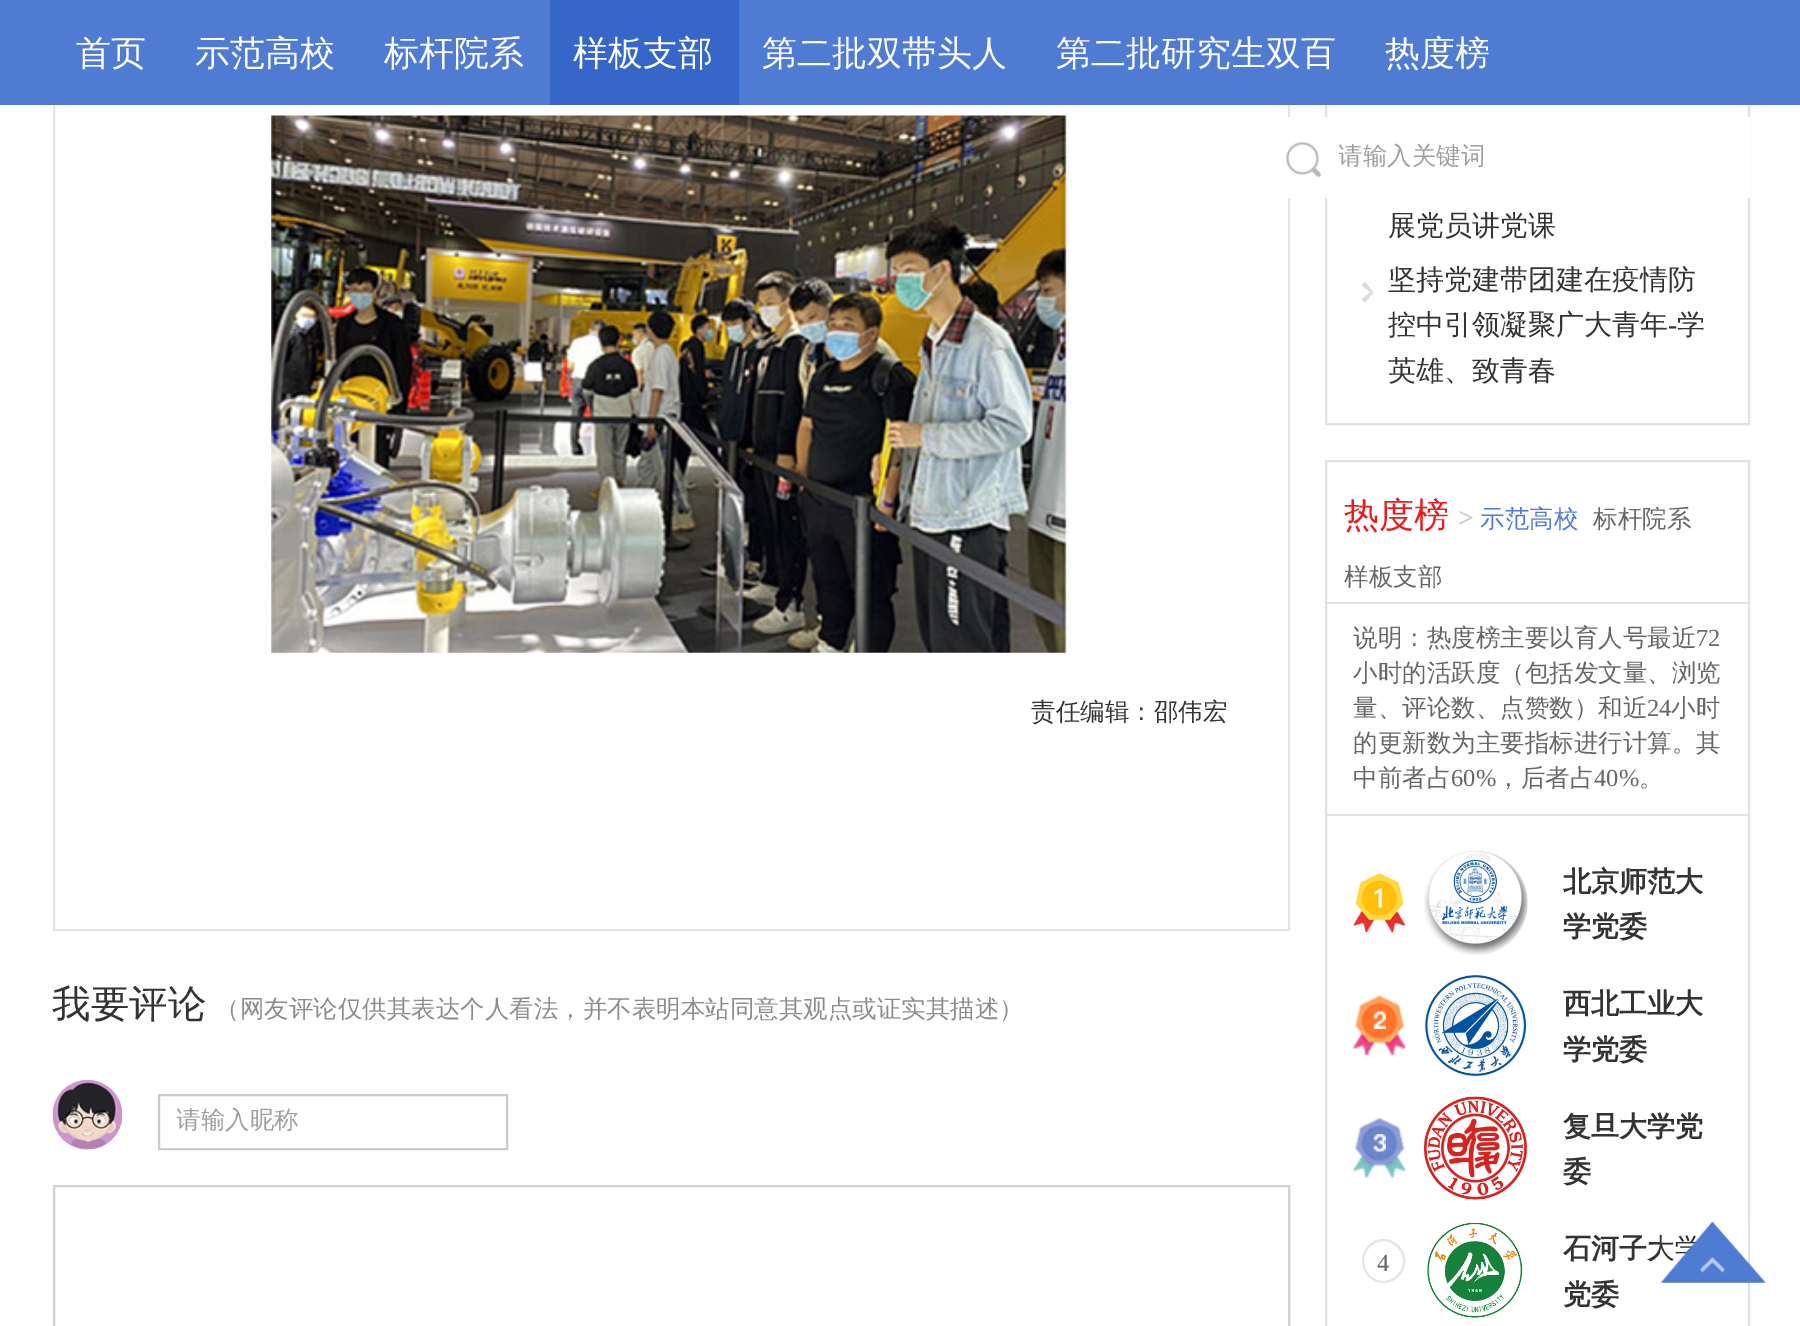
%!PS
<< /PageSize [1800 1326] >> setpagedevice
/s/stroke load def
/q/gsave load def
/Q_/grestore load def
/w/setlinewidth load def
/C { dup -16 bitshift 255 div exch dup -8 bitshift 255 and 255 div exch 255 and 255 div setrgbcolor } def
/F { [ exch dup neg 0 0 3 -1 roll 0 0 ] selectfont } def
/T { moveto show } def
/R { rectfill } def
/Q { 5 dict begin { /r /h /w /y /x } { exch def } forall
  x r add y moveto x w add y 2 copy h add r arct x w add y h add x 1 index r arct
  x y h add x y r arct x y 2 copy exch w add exch r arct closepath end } def
/I { 5 dict begin { /h /w /y /x /name } { exch def } forall
  gsave x y translate w h scale
  w h 8 [w 0 0 h 0 0] name (r) file false 3 colorimage grestore end } def
0 1326 translate 1 -1 scale
4 setmiterlimit
16#FFFFFF C
0 0 1800 1326 R
16#E5E5E5 C
2 w
54 -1 1235 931 rectstroke
16#E1E1E1 C
1326 -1 423 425 rectstroke
16#507BD3 C
0 0 1800 105 R
/WenQuanYiZenHei-Medium 35 F
16#FEFEFE C
(首页) 76 65 T
(示范高校) 195 65 T
(标杆院系) 384 65 T
16#3666C8 C
550 0 189 105 R
16#FEFEFE C
(样板支部) 573 65 T
(第二批双带头人) 762 65 T
(第二批研究生双百) 1056 65 T
(热度榜) 1385 65 T
16#FFFFFF C
1288 117 462 81 R
(1.rgb) 1286 141 36 36 I
q
1339 142 411 31 rectclip
/WenQuanYiZenHei-Medium 24.5 F
16#A0A0A0 C
(请输入关键词) 1338 164 T
Q_
(2.rgb) 271 115 799 538 I
/WenQuanYiZenHei-Medium 24.5 F
16#333333 C
(责任编辑：邵伟宏) 1031 720 T
/WenQuanYiZenHei-Medium 38.5 F
(我要评论) 52 1017 T
/WenQuanYiZenHei-Medium 24.5 F
16#8C8C8C C
(（网友评论仅供其表达个人看法，并不表明本站同意其观点或证实其描述）) 215 1017 T
(3.rgb) 52 1079 71 71 I
16#CCCCCC C
159 1095 348 54 rectstroke
q
177 1106 311 32 rectclip
16#A0A0A0 C
(请输入昵称) 176 1128 T
Q_
16#D2D2D2 C
54 1186 1235 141 rectstroke
/WenQuanYiZenHei-Medium 28 F
16#333333 C
(展党员讲党课) 1388 235 T
(4.rgb) 1361 282 13 21 I
(坚持党建带团建在疫情防) 1388 289 T
(控中引领凝聚广大青年) 1388 334 T
/LiberationSerif-Regular 28 F
(-) 1668 334 T
/WenQuanYiZenHei-Medium 28 F
(学) 1677 334 T
(英雄、致青春) 1388 380 T
16#E1E1E1 C
1326 461 423 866 rectstroke
1327 602 421 2 R
/WenQuanYiZenHei-Medium 35 F
16#E91B1B C
(热度榜) 1344 527 T
/LiberationSerif-Bold 28 F
16#CCCCCC C
(>) 1458 527 T
/WenQuanYiZenHei-Medium 24.5 F
16#507BD3 C
(示范高校) 1480 527 T
16#666666 C
(标杆院系) 1593 527 T
(样板支部) 1344 585 T
16#E1E1E1 C
1327 814 421 2 R
16#666666 C
(说明：热度榜主要以育人号最近) 1353 646 T
/LiberationSerif-Regular 24.5 F
(72) 1696 646 T
/WenQuanYiZenHei-Medium 24.5 F
(小时的活跃度（包括发文量、浏览) 1353 681 T
(量、评论数、点赞数）和近) 1353 716 T
/LiberationSerif-Regular 24.5 F
(24) 1647 716 T
/WenQuanYiZenHei-Medium 24.5 F
(小时) 1671 716 T
(的更新数为主要指标进行计算。其) 1353 751 T
(中前者占) 1353 786 T
/LiberationSerif-Regular 24.5 F
(60%) 1451 786 T
/WenQuanYiZenHei-Medium 24.5 F
(，后者占) 1496 786 T
/LiberationSerif-Regular 24.5 F
(40%) 1594 786 T
/WenQuanYiZenHei-Medium 24.5 F
(。) 1639 786 T
(5.rgb) 1353 873 53 60 I
(6.rgb) 1424 851 104 104 I
/WenQuanYiZenHei-Bold 28 F
16#333333 C
(北京师范大) 1563 891 T
(学党委) 1563 936 T
(7.rgb) 1352 995 54 61 I
(8.rgb) 1424 974 103 103 I
(西北工业大) 1563 1013 T
(学党委) 1563 1059 T
(9.rgb) 1352 1118 54 60 I
(10.rgb) 1424 1096 103 104 I
(复旦大学党) 1563 1136 T
(委) 1563 1181 T
16#E5E5E5 C
1363 1240 41 42 20.5 Q s
/LiberationSerif-Regular 24.5 F
16#666666 C
(4) 1377 1271 T
(11.rgb) 1427 1222 96 96 I
/WenQuanYiZenHei-Bold 28 F
16#333333 C
(石河子大学) 1563 1258 T
(党委) 1563 1304 T
(12.rgb) 1660 1221 106 62 I
showpage
